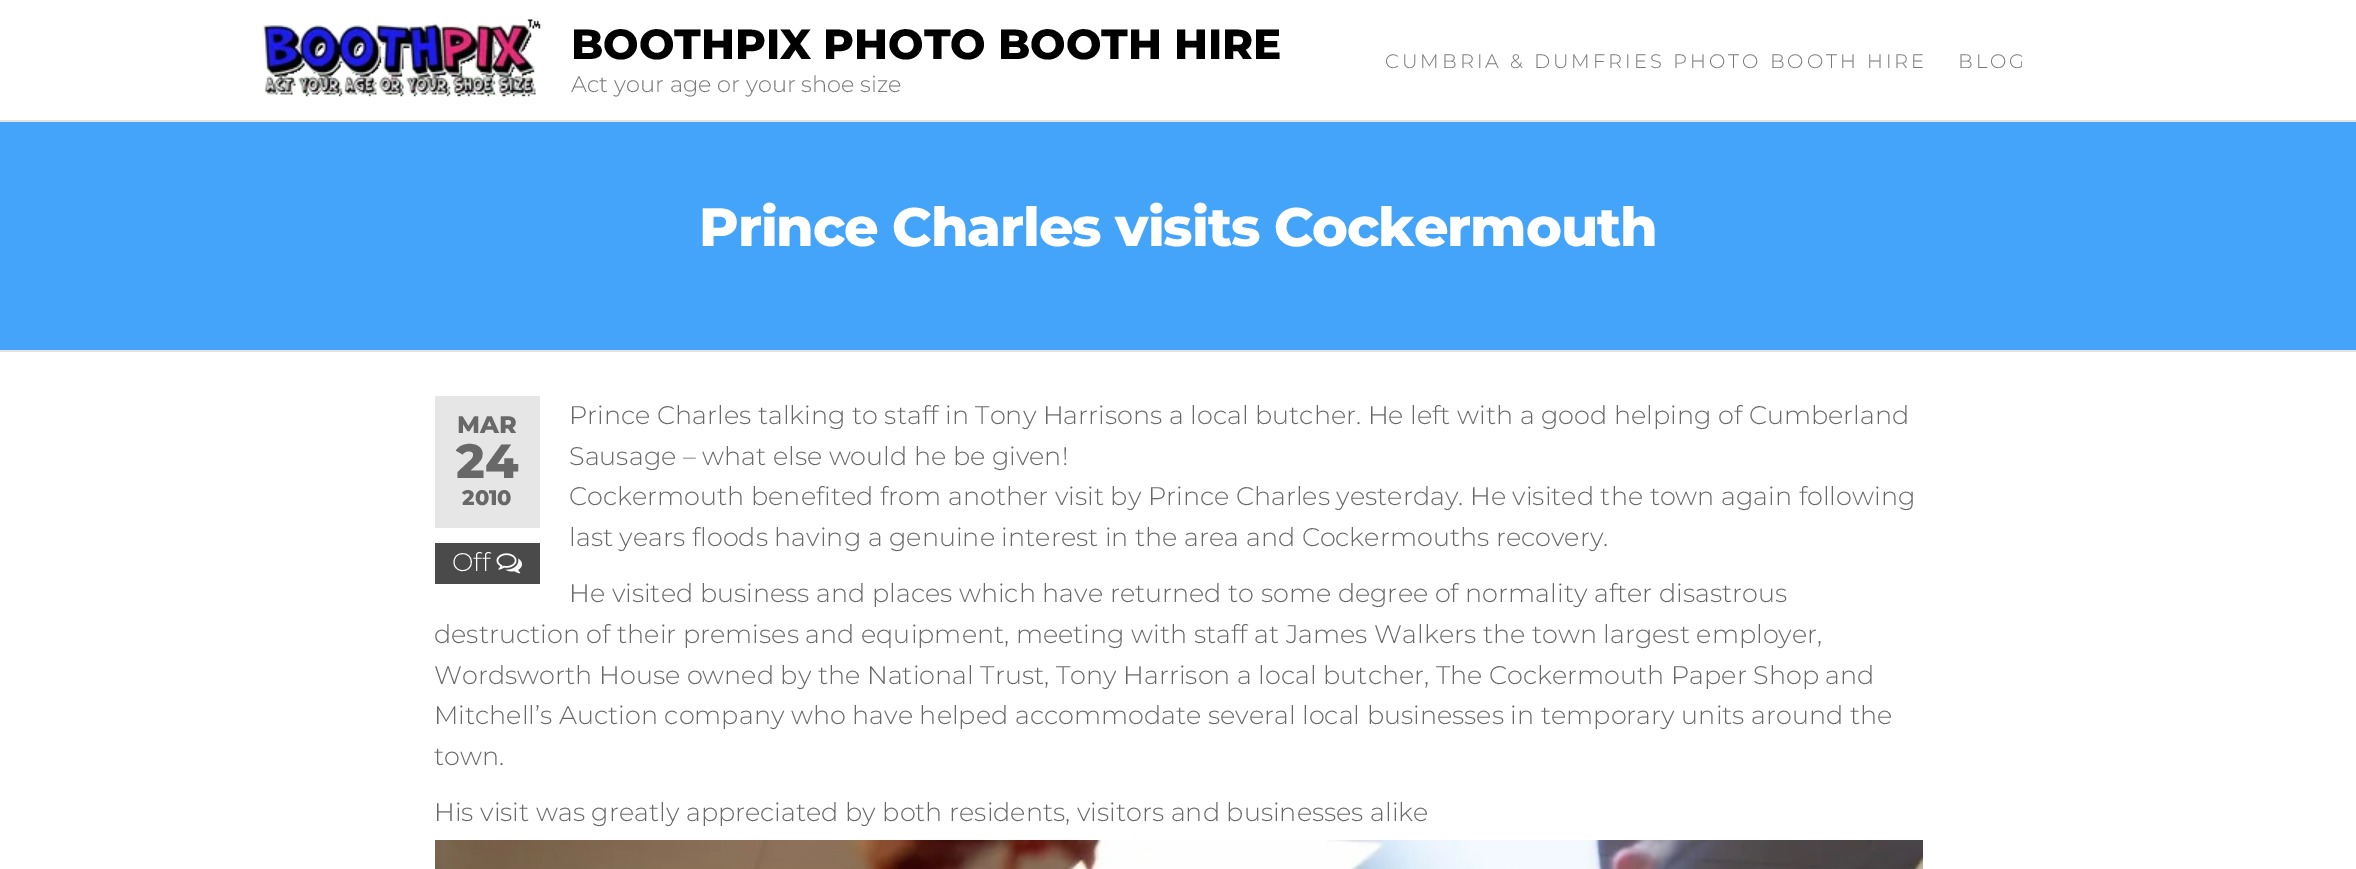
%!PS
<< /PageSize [2356 869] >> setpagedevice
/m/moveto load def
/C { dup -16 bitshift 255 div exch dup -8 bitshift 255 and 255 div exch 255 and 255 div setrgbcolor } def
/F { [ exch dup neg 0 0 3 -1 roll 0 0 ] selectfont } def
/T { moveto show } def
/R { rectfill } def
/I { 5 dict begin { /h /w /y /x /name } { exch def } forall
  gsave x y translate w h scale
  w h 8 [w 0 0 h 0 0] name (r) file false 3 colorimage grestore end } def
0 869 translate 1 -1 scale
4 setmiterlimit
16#FFFFFF C
0 0 2356 869 R
16#E2E2E2 C
0 120 2356 2 R
(1.rgb) 262 19 279 78 I
/Montserrat-ExtraBold 42 F
16#000000 C
(BOOTHPIX PHOTO BOOTH HIRE) 571 59 T
/Montserrat-Light 22.5 F
16#777777 C
(Act your age or your shoe size) 571 92 T
/Montserrat-Light 19.5 F
1385 68 m 3 0 (CUMBRIA & DUMFRIES PHOTO BOOTH HIRE) ashow
1958 68 m 3 0 (BLOG) ashow
16#E2E2E2 C
0 350 2356 2 R
16#43A4FA C
0 122 2356 228 R
/Montserrat-ExtraBold 54 F
16#FFFFFF C
699 246 m -1.1 0 (Prince Charles visits Cockermouth) ashow
16#E6E6E6 C
435 396 105 132 R
/Montserrat-ExtraBold 24 F
16#686868 C
(MAR) 457 433 T
/Montserrat-ExtraBold 48 F
(24) 456 478 T
/Montserrat-ExtraBold 21 F
(2010) 462 505 T
16#4A4A4A C
435 543 105 41 R
/Montserrat-Light 25.5 F
16#FFFFFF C
(Off) 452 571 T
(2.rgb) 496 553 26 21 I
16#686868 C
(Prince Charles talking to staff in Tony Harrisons a local butcher. He left with a good helping of Cumberland) 569 424 T
(Sausage – what else would he be given!) 569 465 T
(Cockermouth benefited from another visit by Prince Charles yesterday. He visited the town again following) 569 505 T
(last years floods having a genuine interest in the area and Cockermouths recovery.) 569 546 T
(He visited business and places which have returned to some degree of normality after disastrous) 569 602 T
(destruction of their premises and equipment, meeting with staff at James Walkers the town largest employer,) 434 643 T
(Wordsworth House owned by the National Trust, Tony Harrison a local butcher, The Cockermouth Paper Shop and) 434 684 T
(Mitchell’s Auction company who have helped accommodate several local businesses in temporary units around the) 434 724 T
(town.) 434 765 T
(His visit was greatly appreciated by both residents, visitors and businesses alike) 434 821 T
(3.rgb) 435 840 1488 29 I
showpage
